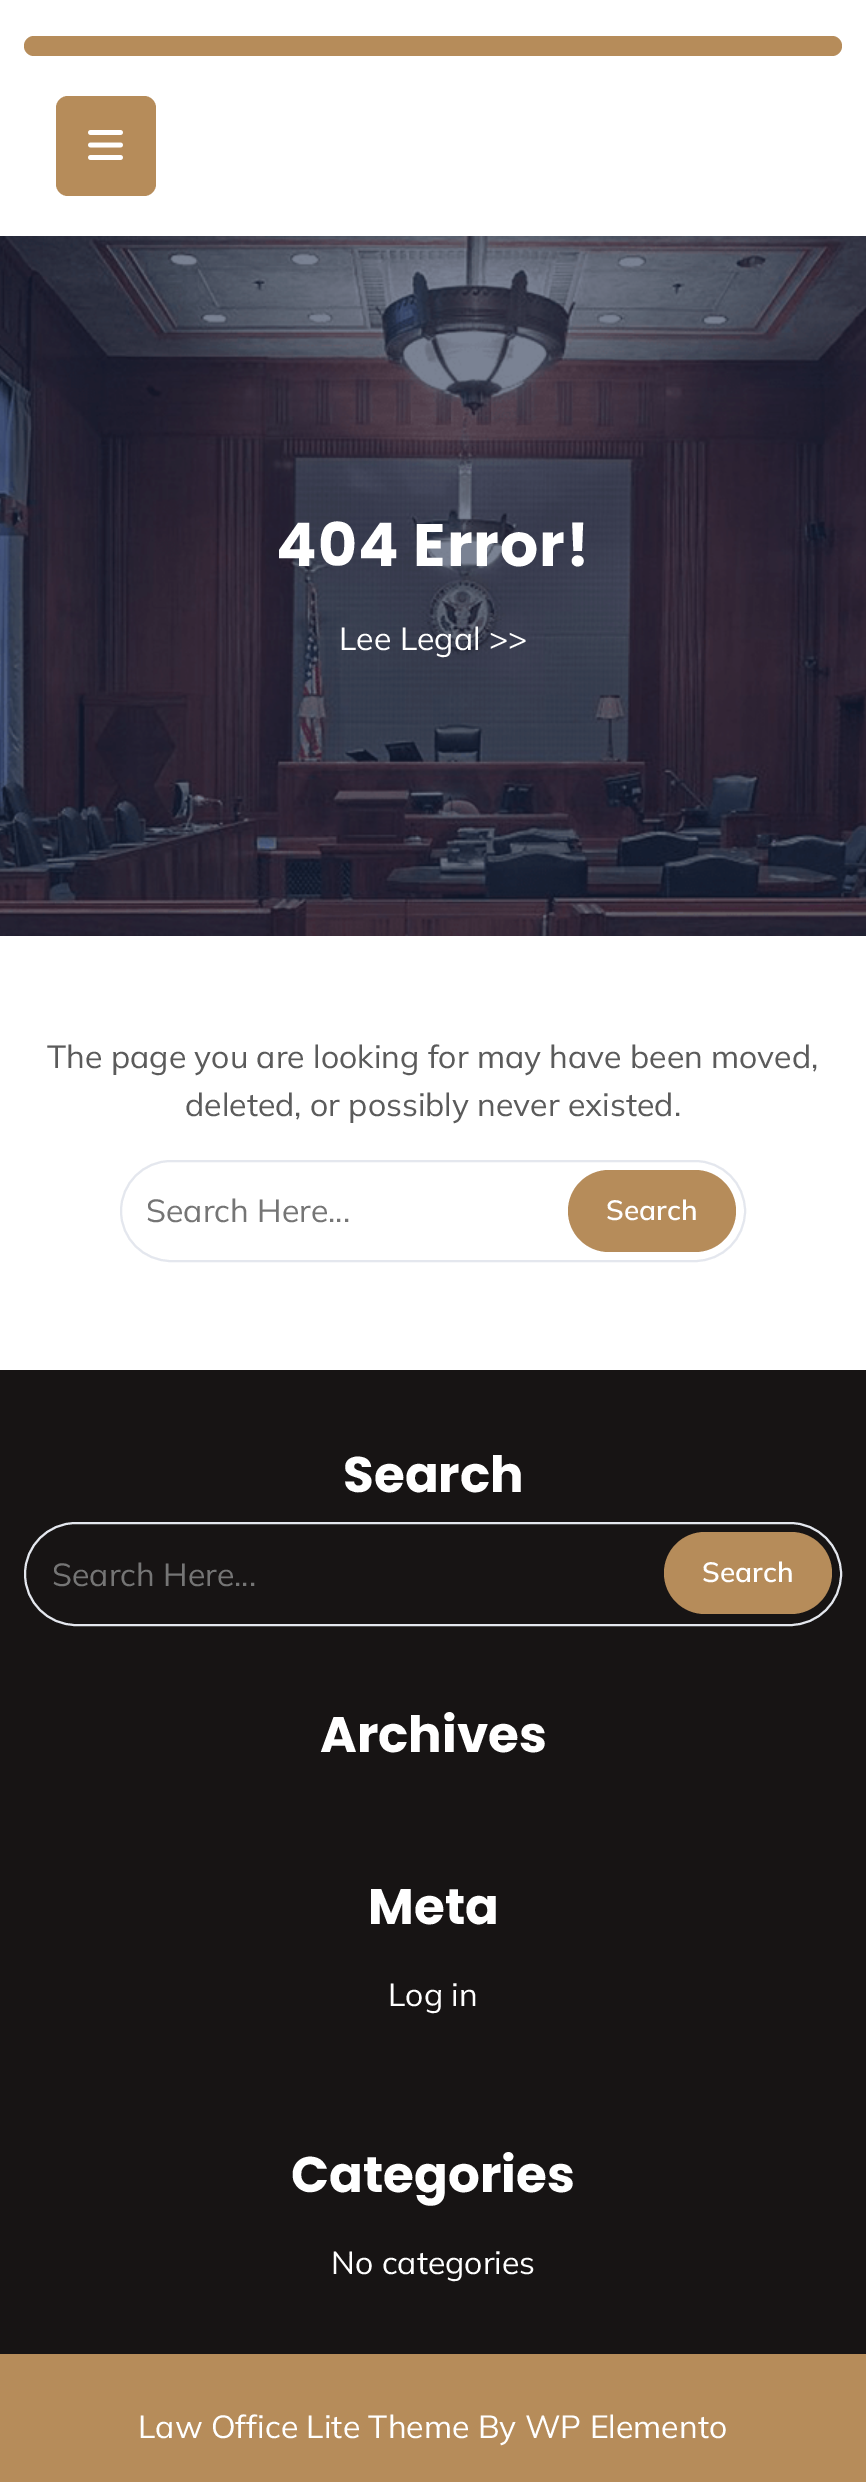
%!PS
<< /PageSize [866 2482] >> setpagedevice
/m/moveto load def
/f/fill load def
/s/stroke load def
/w/setlinewidth load def
/C { dup -16 bitshift 255 div exch dup -8 bitshift 255 and 255 div exch 255 and 255 div setrgbcolor } def
/F { [ exch dup neg 0 0 3 -1 roll 0 0 ] selectfont } def
/T { moveto show } def
/R { rectfill } def
/Q { 5 dict begin { /r /h /w /y /x } { exch def } forall
  x r add y moveto x w add y 2 copy h add r arct x w add y h add x 1 index r arct
  x y h add x y r arct x y 2 copy exch w add exch r arct closepath end } def
/I { 5 dict begin { /h /w /y /x /name } { exch def } forall
  gsave x y translate w h scale
  w h 8 [w 0 0 h 0 0] name (r) file false 3 colorimage grestore end } def
0 2482 translate 1 -1 scale
4 setmiterlimit
16#FFFFFF C
0 0 866 2482 R
16#B68C5A C
24 36 818 20 10 Q f
56 96 100 100 12 Q f
(1.rgb) 88 130 35 30 I
(2.rgb) 0 236 866 700 I
/Poppins-Bold 60 F
16#FFFFFF C
276 566 m 1 0 (404 Error!) ashow
/Mulish-Regular 32 F
(Lee Legal) 339 650 T
(>>) 489 650 T
16#5B5B5B C
(The page you are looking for may have been moved,) 47 1068 T
(deleted, or possibly never existed.) 185 1116 T
16#E4E7EE C
2 w
121 1161 624 100 50 Q s
16#757575 C
(Search Here...) 146 1222 T
16#B68C5A C
568 1170 168 82 41 Q f
/Mulish-SemiBold 28 F
16#FFFFFF C
(Search) 606 1220 T
16#171414 C
0 1370 866 984 R
/Poppins-Bold 50 F
16#FFFFFF C
(Search) 343 1492 T
16#E4E7EE C
25 1523 816 102 51 Q s
/Mulish-Regular 32 F
16#757575 C
(Search Here...) 52 1586 T
16#B68C5A C
664 1532 168 82 41 Q f
/Mulish-SemiBold 28 F
16#FFFFFF C
(Search) 702 1582 T
/Poppins-Bold 50 F
(Archives) 320 1752 T
(Meta) 368 1924 T
/Mulish-Regular 32 F
(Log in) 388 2006 T
/Poppins-Bold 50 F
(Categories) 291 2192 T
/Mulish-Regular 32 F
(No categories) 331 2274 T
16#B68C5A C
0 2354 866 128 R
16#FFFFFF C
(Law Office Lite Theme By WP Elemento) 138 2438 T
showpage
